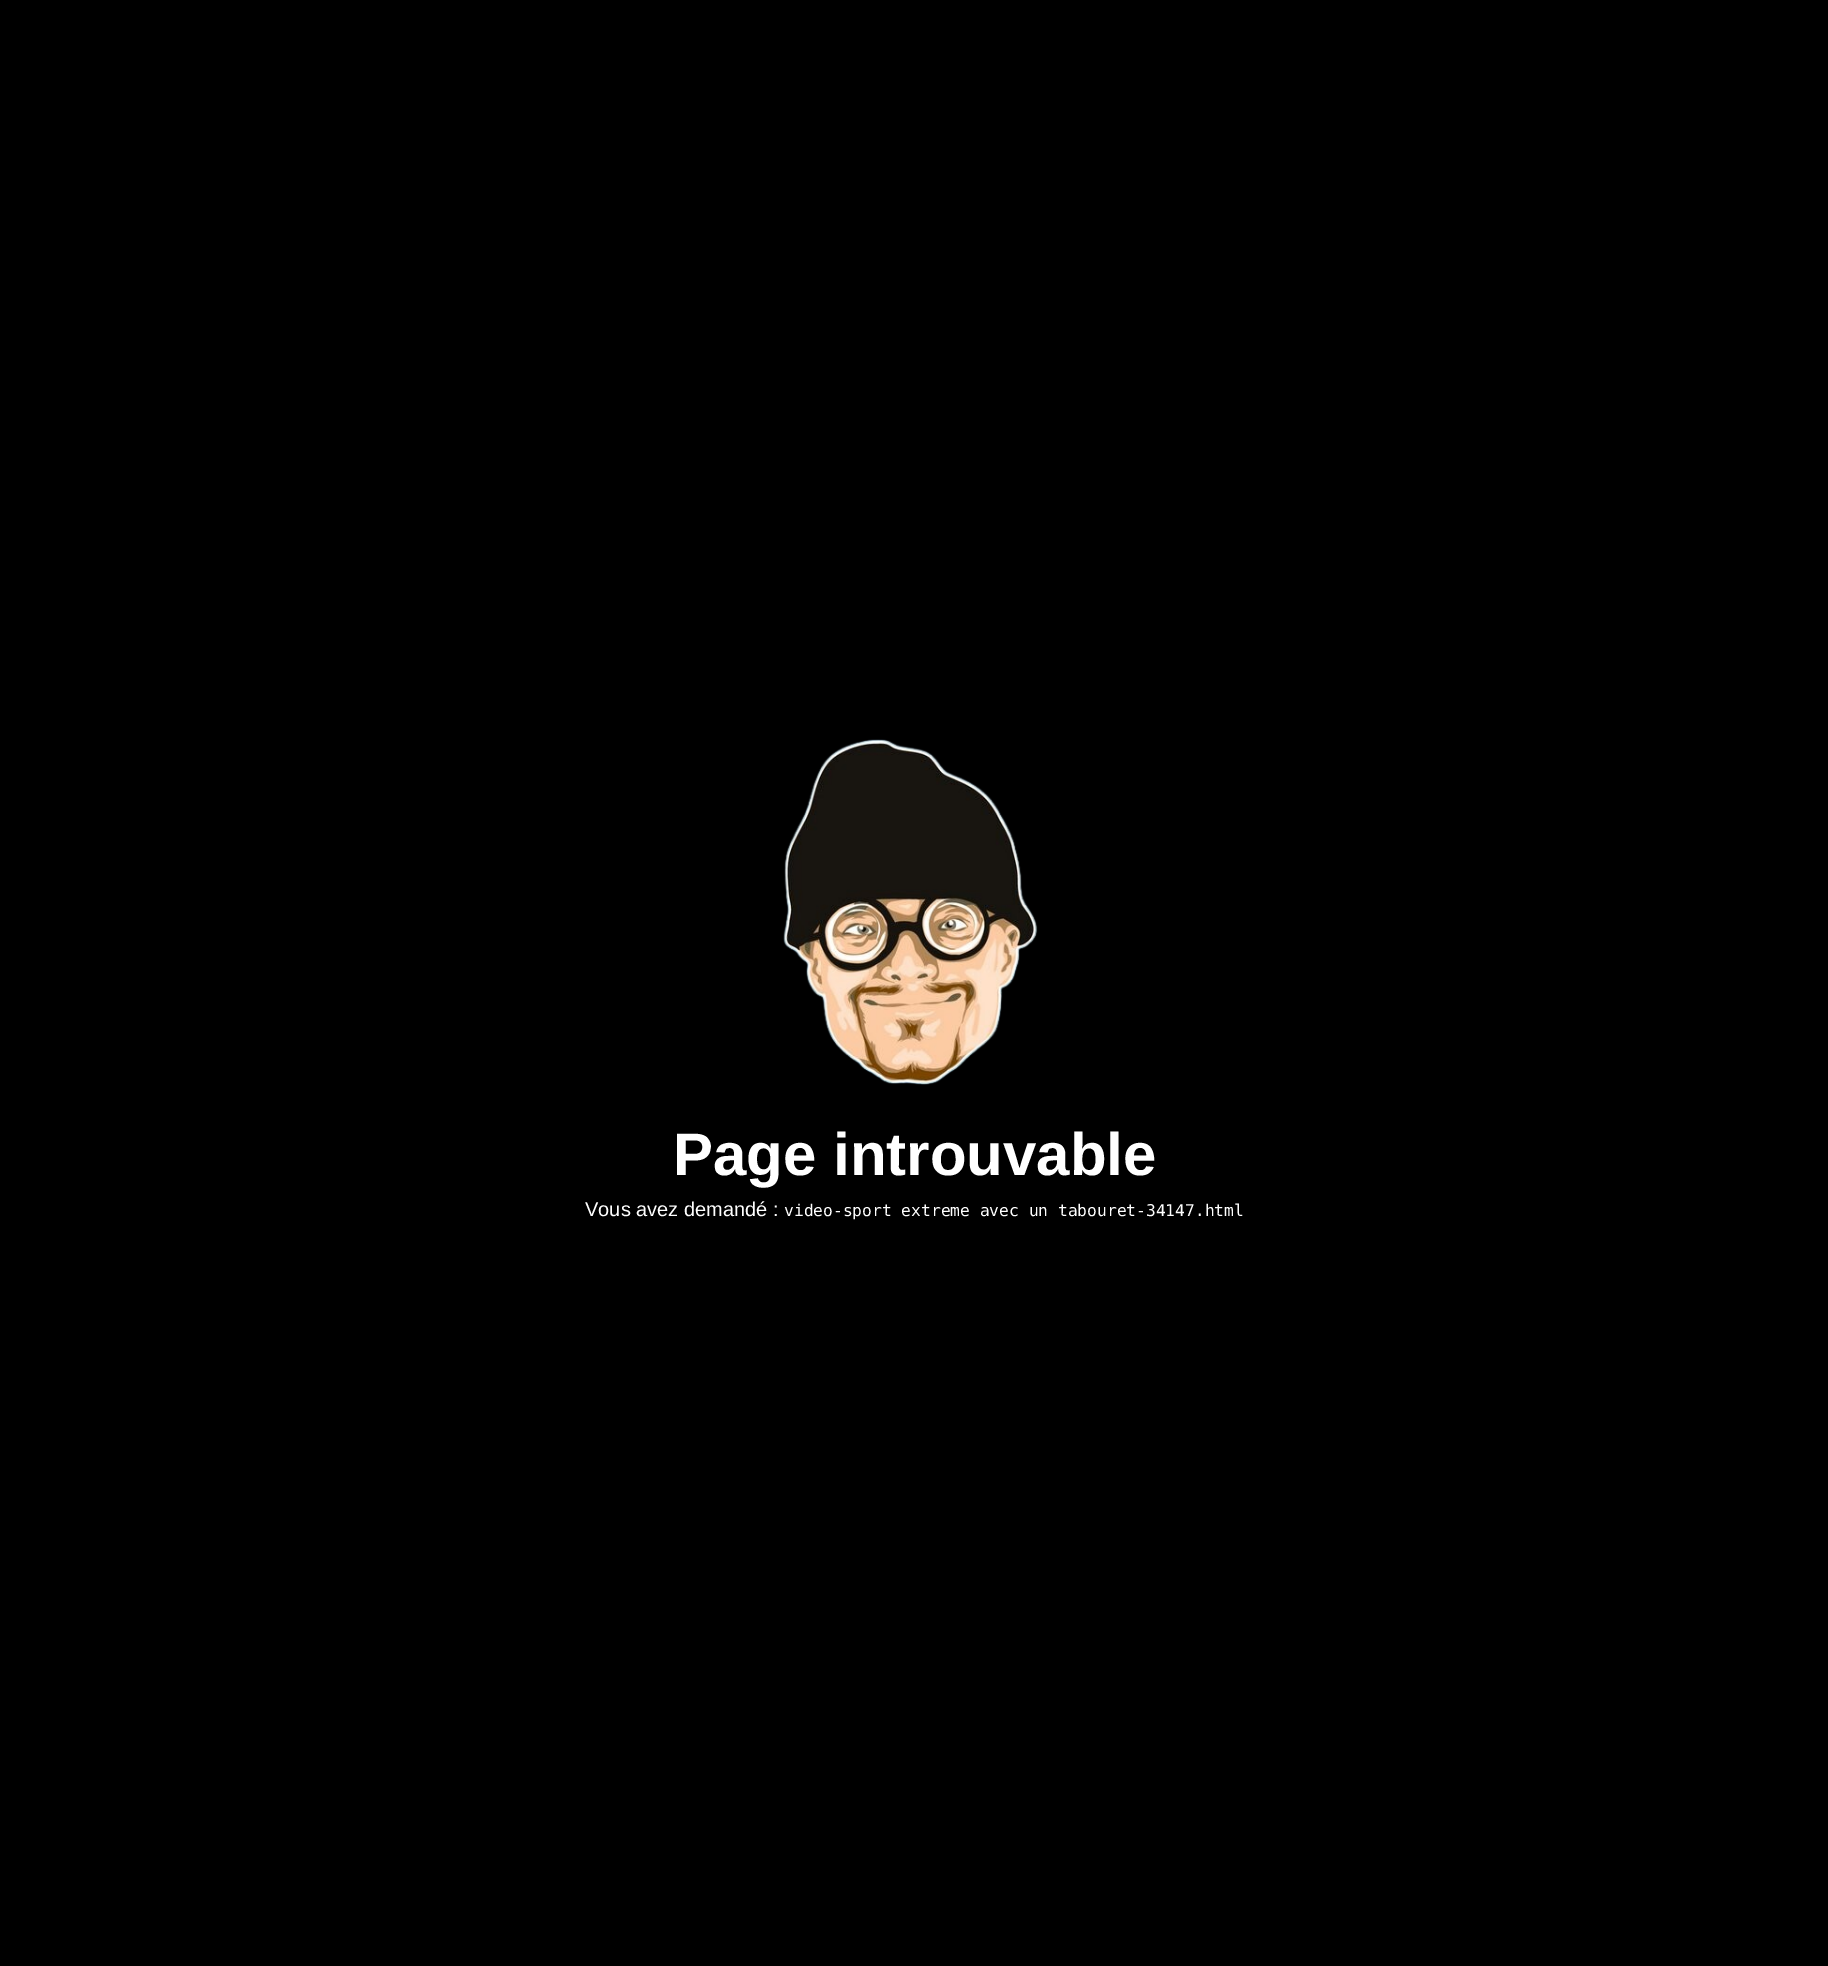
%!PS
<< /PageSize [1828 1966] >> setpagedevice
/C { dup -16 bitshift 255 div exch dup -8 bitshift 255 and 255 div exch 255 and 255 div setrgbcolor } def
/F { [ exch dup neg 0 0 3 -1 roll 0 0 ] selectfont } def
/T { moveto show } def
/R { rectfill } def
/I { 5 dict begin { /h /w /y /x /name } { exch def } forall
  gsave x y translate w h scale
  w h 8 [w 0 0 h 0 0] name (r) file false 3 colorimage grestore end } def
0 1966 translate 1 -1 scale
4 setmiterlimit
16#000000 C
0 0 1828 1966 R
(1.rgb) 783 739 255 346 I
/LiberationSans-Bold 60 F
16#FFFFFF C
(Page introuvable) 673 1175 T
/LiberationSans-Regular 20 F
(Vous avez demandé :) 585 1216 T
/DejaVuSansMono-Regular 16.25 F
(video-sport extreme avec un tabouret-34147.html) 784 1216 T
showpage
